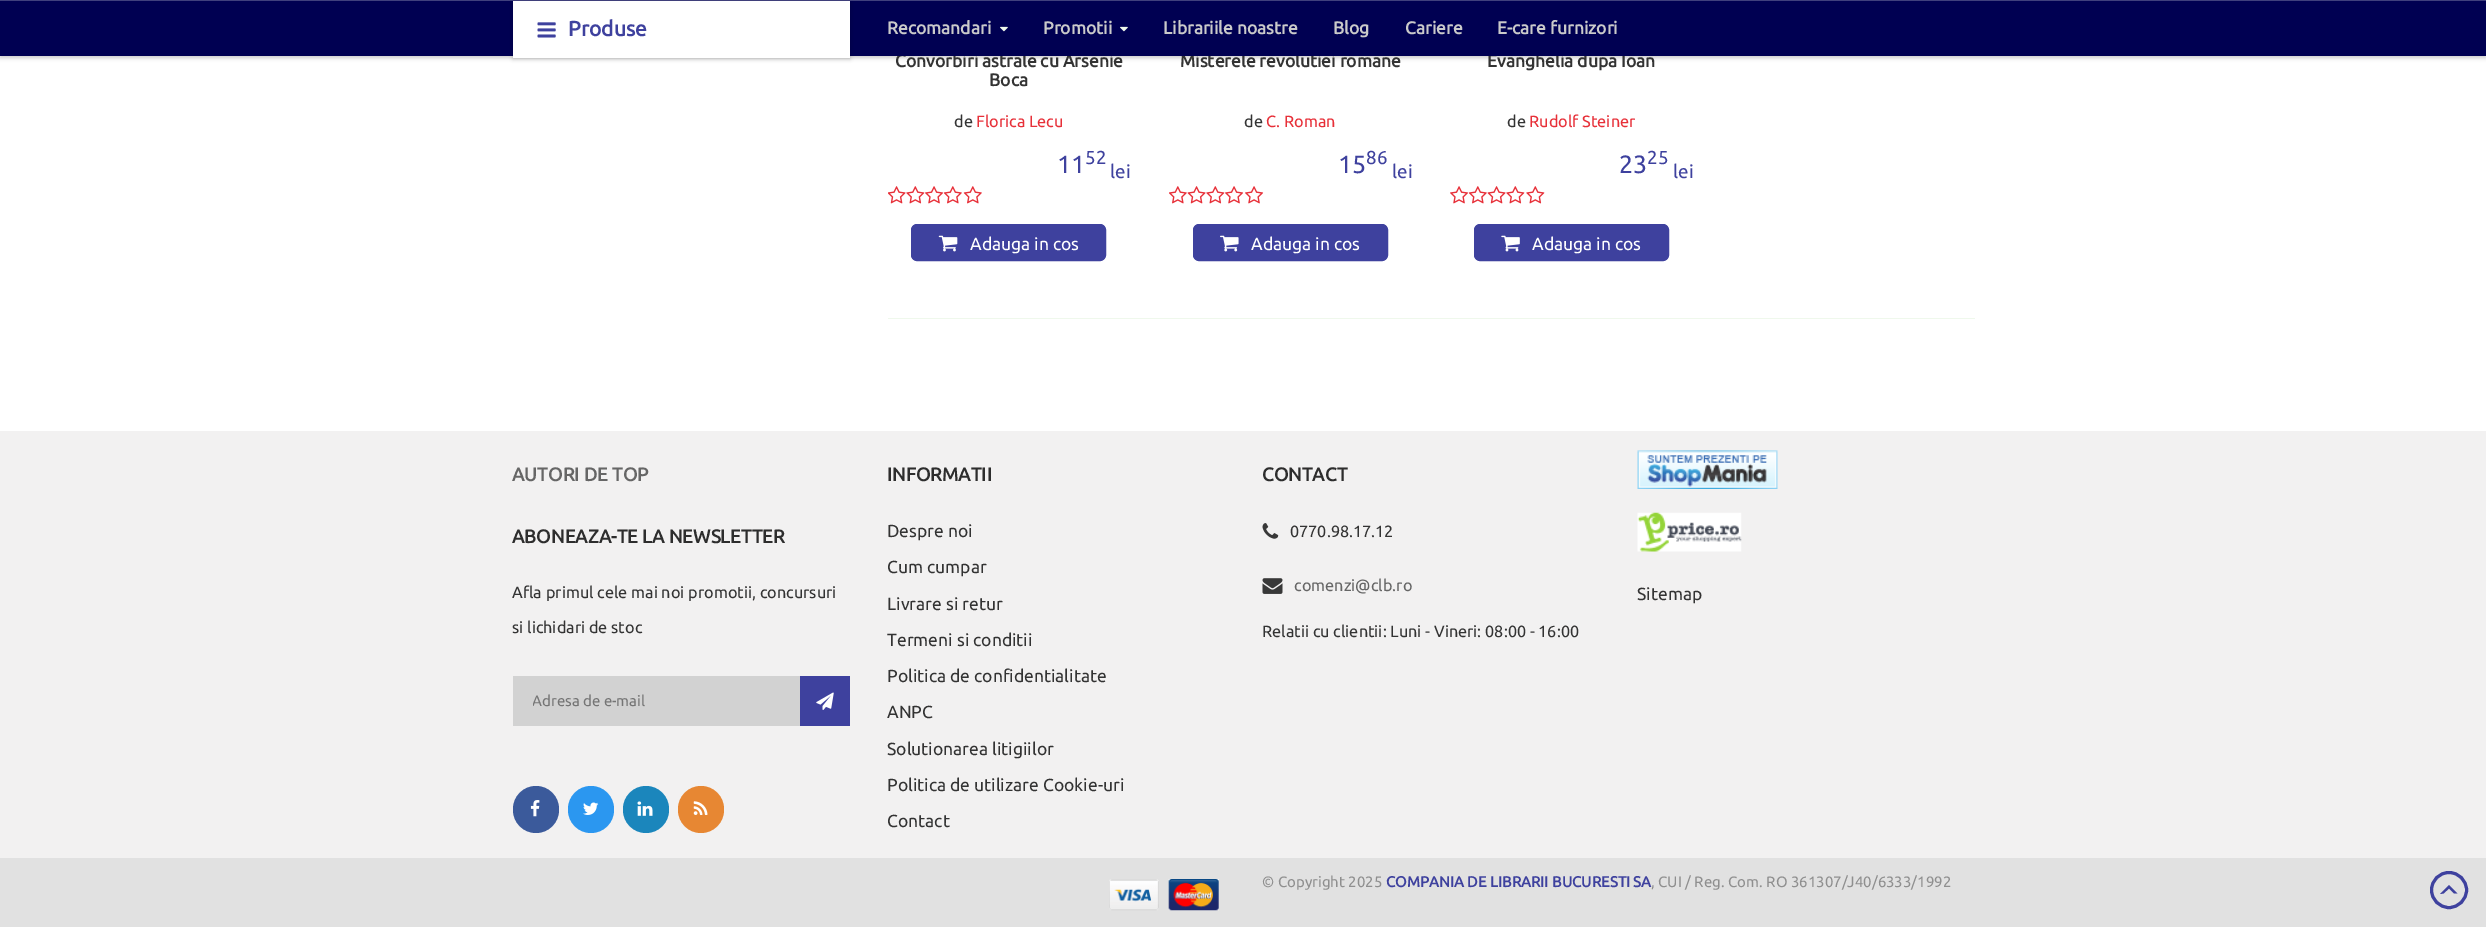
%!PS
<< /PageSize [2486 927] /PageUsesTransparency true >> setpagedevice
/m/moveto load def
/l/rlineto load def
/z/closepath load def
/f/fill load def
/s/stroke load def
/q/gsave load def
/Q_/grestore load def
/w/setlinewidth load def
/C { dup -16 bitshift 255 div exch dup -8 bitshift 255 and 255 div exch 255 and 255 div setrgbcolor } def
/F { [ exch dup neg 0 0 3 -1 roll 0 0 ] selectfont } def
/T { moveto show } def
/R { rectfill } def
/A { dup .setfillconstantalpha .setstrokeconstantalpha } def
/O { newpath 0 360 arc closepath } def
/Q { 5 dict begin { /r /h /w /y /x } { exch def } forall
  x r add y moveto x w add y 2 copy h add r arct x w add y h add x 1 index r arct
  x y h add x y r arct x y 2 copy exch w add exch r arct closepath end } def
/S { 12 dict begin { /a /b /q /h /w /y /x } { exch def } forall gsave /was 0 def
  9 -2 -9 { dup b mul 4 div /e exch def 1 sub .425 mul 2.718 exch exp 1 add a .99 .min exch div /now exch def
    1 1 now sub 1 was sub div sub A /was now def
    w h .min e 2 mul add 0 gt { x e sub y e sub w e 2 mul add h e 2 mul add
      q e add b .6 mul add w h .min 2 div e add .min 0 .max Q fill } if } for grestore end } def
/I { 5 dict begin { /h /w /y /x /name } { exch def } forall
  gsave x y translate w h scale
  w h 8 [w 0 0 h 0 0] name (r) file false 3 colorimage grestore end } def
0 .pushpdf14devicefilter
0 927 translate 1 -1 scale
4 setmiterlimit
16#FFFFFF C
0 0 2486 927 R
16#000000 C
0 1 2486 57 0 2 .2 S
/Ubuntu-Bold 17.5 F
16#333333 C
(Convorbiri astrale cu Arsenie) 895 67 T
(Misterele revolutiei romane) 1180 67 T
(Evanghelia dupa Ioan) 1487 67 T
16#000052 C
0 1 2486 55 R
16#40407D C
0 0 2486 1 R
16#000000 C
513 3 337 56 0 2 .2 S
16#FFFFFF C
513 1 337 57 R
(1.rgb) 537 22 19 16 I
/Ubuntu-Bold 21 F
16#3E419E C
(Produse) 568 36 T
/Ubuntu-Bold 17.5 F
16#CACACA C
(Recomandari) 887 34 T
(2.rgb) 1000 26 8 6 I
(Promotii) 1043 34 T
(2.rgb) 1120 26 8 6 I
(Librariile noastre) 1163 34 T
(Blog) 1333 34 T
(Cariere) 1405 34 T
(E-care furnizori) 1497 34 T
16#333333 C
(Boca) 989 86 T
/Ubuntu-Regular 16.25 F
(de) 954 127 T
16#E73039 C
(Florica Lecu) 976 127 T
/Ubuntu-Regular 25 F
16#3E419E C
(11) 1057 173 T
/Ubuntu-Regular 18.75 F
(52) 1085 164 T
(lei) 1110 178 T
(3.rgb) 888 186 18 18 I
(4.rgb) 906 186 19 18 I
(5.rgb) 925 186 19 18 I
(6.rgb) 943 186 19 18 I
(7.rgb) 963 186 19 18 I
911.5 224.5 194 36 5.5 Q q f Q_
s
(8.rgb) 938 235 20 17 I
/Ubuntu-Regular 17.5 F
16#FFFFFF C
(Adauga in cos) 970 250 T
/Ubuntu-Regular 16.25 F
16#333333 C
(de) 1244 127 T
16#E73039 C
(C. Roman) 1266 127 T
/Ubuntu-Regular 25 F
16#3E419E C
(15) 1338 173 T
/Ubuntu-Regular 18.75 F
(86) 1366 164 T
(lei) 1392 178 T
(9.rgb) 1169 186 18 18 I
(10.rgb) 1187 186 19 18 I
(4.rgb) 1206 186 19 18 I
(5.rgb) 1225 186 19 18 I
(5.rgb) 1245 186 19 18 I
1193.5 224.5 194 36 5.5 Q q f Q_
s
(11.rgb) 1220 235 19 17 I
/Ubuntu-Regular 17.5 F
16#FFFFFF C
(Adauga in cos) 1251 250 T
/Ubuntu-Regular 16.25 F
16#333333 C
(de) 1507 127 T
16#E73039 C
(Rudolf Steiner) 1529 127 T
/Ubuntu-Regular 25 F
16#3E419E C
(23) 1619 173 T
/Ubuntu-Regular 18.75 F
(25) 1647 164 T
(lei) 1673 178 T
(5.rgb) 1450 186 19 18 I
(6.rgb) 1468 186 19 18 I
(10.rgb) 1487 186 19 18 I
(4.rgb) 1506 186 19 18 I
(4.rgb) 1526 186 19 18 I
1474.5 224.5 194 36 5.5 Q q f Q_
s
(12.rgb) 1501 235 19 17 I
/Ubuntu-Regular 17.5 F
16#FFFFFF C
(Adauga in cos) 1532 250 T
16#EFF8EC C
888 318 1087 1 R
16#F2F1F1 C
0 431 2486 427 R
/Ubuntu-Bold 18.75 F
16#666666 C
(AUTORI DE TOP) 512 481 T
16#2D2D2D C
(ABONEAZA-TE LA NEWSLETTER) 512 543 T
/Ubuntu-Regular 16.25 F
16#333333 C
(Afla primul cele mai noi promotii, concursuri) 512 598 T
(si lichidari de stoc) 512 633 T
16#D2D2D2 C
513 676 287 50 R
q
533 693 297 16 rectclip
/Ubuntu-Regular 15 F
16#757575 C
(Adresa de e-mail) 532 706 T
Q_
16#3E419E C
800 676 50 50 R
(13.rgb) 816 692 18 18 I
16#3B5A9B C
513 786 46 47 23 Q f
(14.rgb) 530 800 10 17 I
16#2B97F0 C
568 786 46 47 23 Q f
(15.rgb) 583 802 16 13 I
16#1B86BC C
623 786 46 47 23 Q f
(16.rgb) 637 801 16 15 I
16#E78733 C
678 786 46 47 23 Q f
(17.rgb) 693 801 15 14 I
/Ubuntu-Bold 18.75 F
16#2D2D2D C
(INFORMATII) 887 481 T
/Ubuntu-Regular 17.5 F
16#333333 C
(Despre noi) 887 537 T
(Cum cumpar) 887 573 T
(Livrare si retur) 887 610 T
(Termeni si conditii) 887 646 T
(Politica de confidentialitate) 887 682 T
(ANPC) 887 718 T
(Solutionarea litigiilor) 887 755 T
(Politica de utilizare Cookie-uri) 887 791 T
(Contact) 887 827 T
/Ubuntu-Bold 18.75 F
16#2D2D2D C
(CONTACT) 1262 481 T
(18.rgb) 1262 523 17 16 I
/Ubuntu-Regular 16.25 F
16#333333 C
(0770.98.17.12) 1290 537 T
(19.rgb) 1262 578 21 16 I
16#666666 C
(comenzi@clb.ro) 1294 591 T
16#333333 C
(Relatii cu clientii: Luni - Vineri: 08:00 - 16:00) 1262 637 T
(20.rgb) 1637 450 141 39 I
(21.rgb) 1637 512 105 40 I
/Ubuntu-Regular 17.5 F
(Sitemap) 1637 600 T
16#E1E1E1 C
0 858 2486 69 R
(22.rgb) 1109 879 110 32 I
/Ubuntu-Regular 15 F
16#8F8F8F C
(© Copyright 2025) 1262 887 T
/Ubuntu-Bold 15 F
16#3E419E C
(COMPANIA DE LIBRARII BUCURESTI SA) 1386 887 T
/Ubuntu-Regular 15 F
16#8F8F8F C
(, CUI / Reg. Com. RO 361307/J40/6333/1992) 1651 887 T
16#3E419E C
3 w
2449 890 17.5 O s
2449 885 m 8.5 8.5 l -3.5 0 l -5 -5 l z 2440 894 m 9 -9 l 0 3.5 l -5.5 5 l z f
.poppdf14devicefilter showpage
